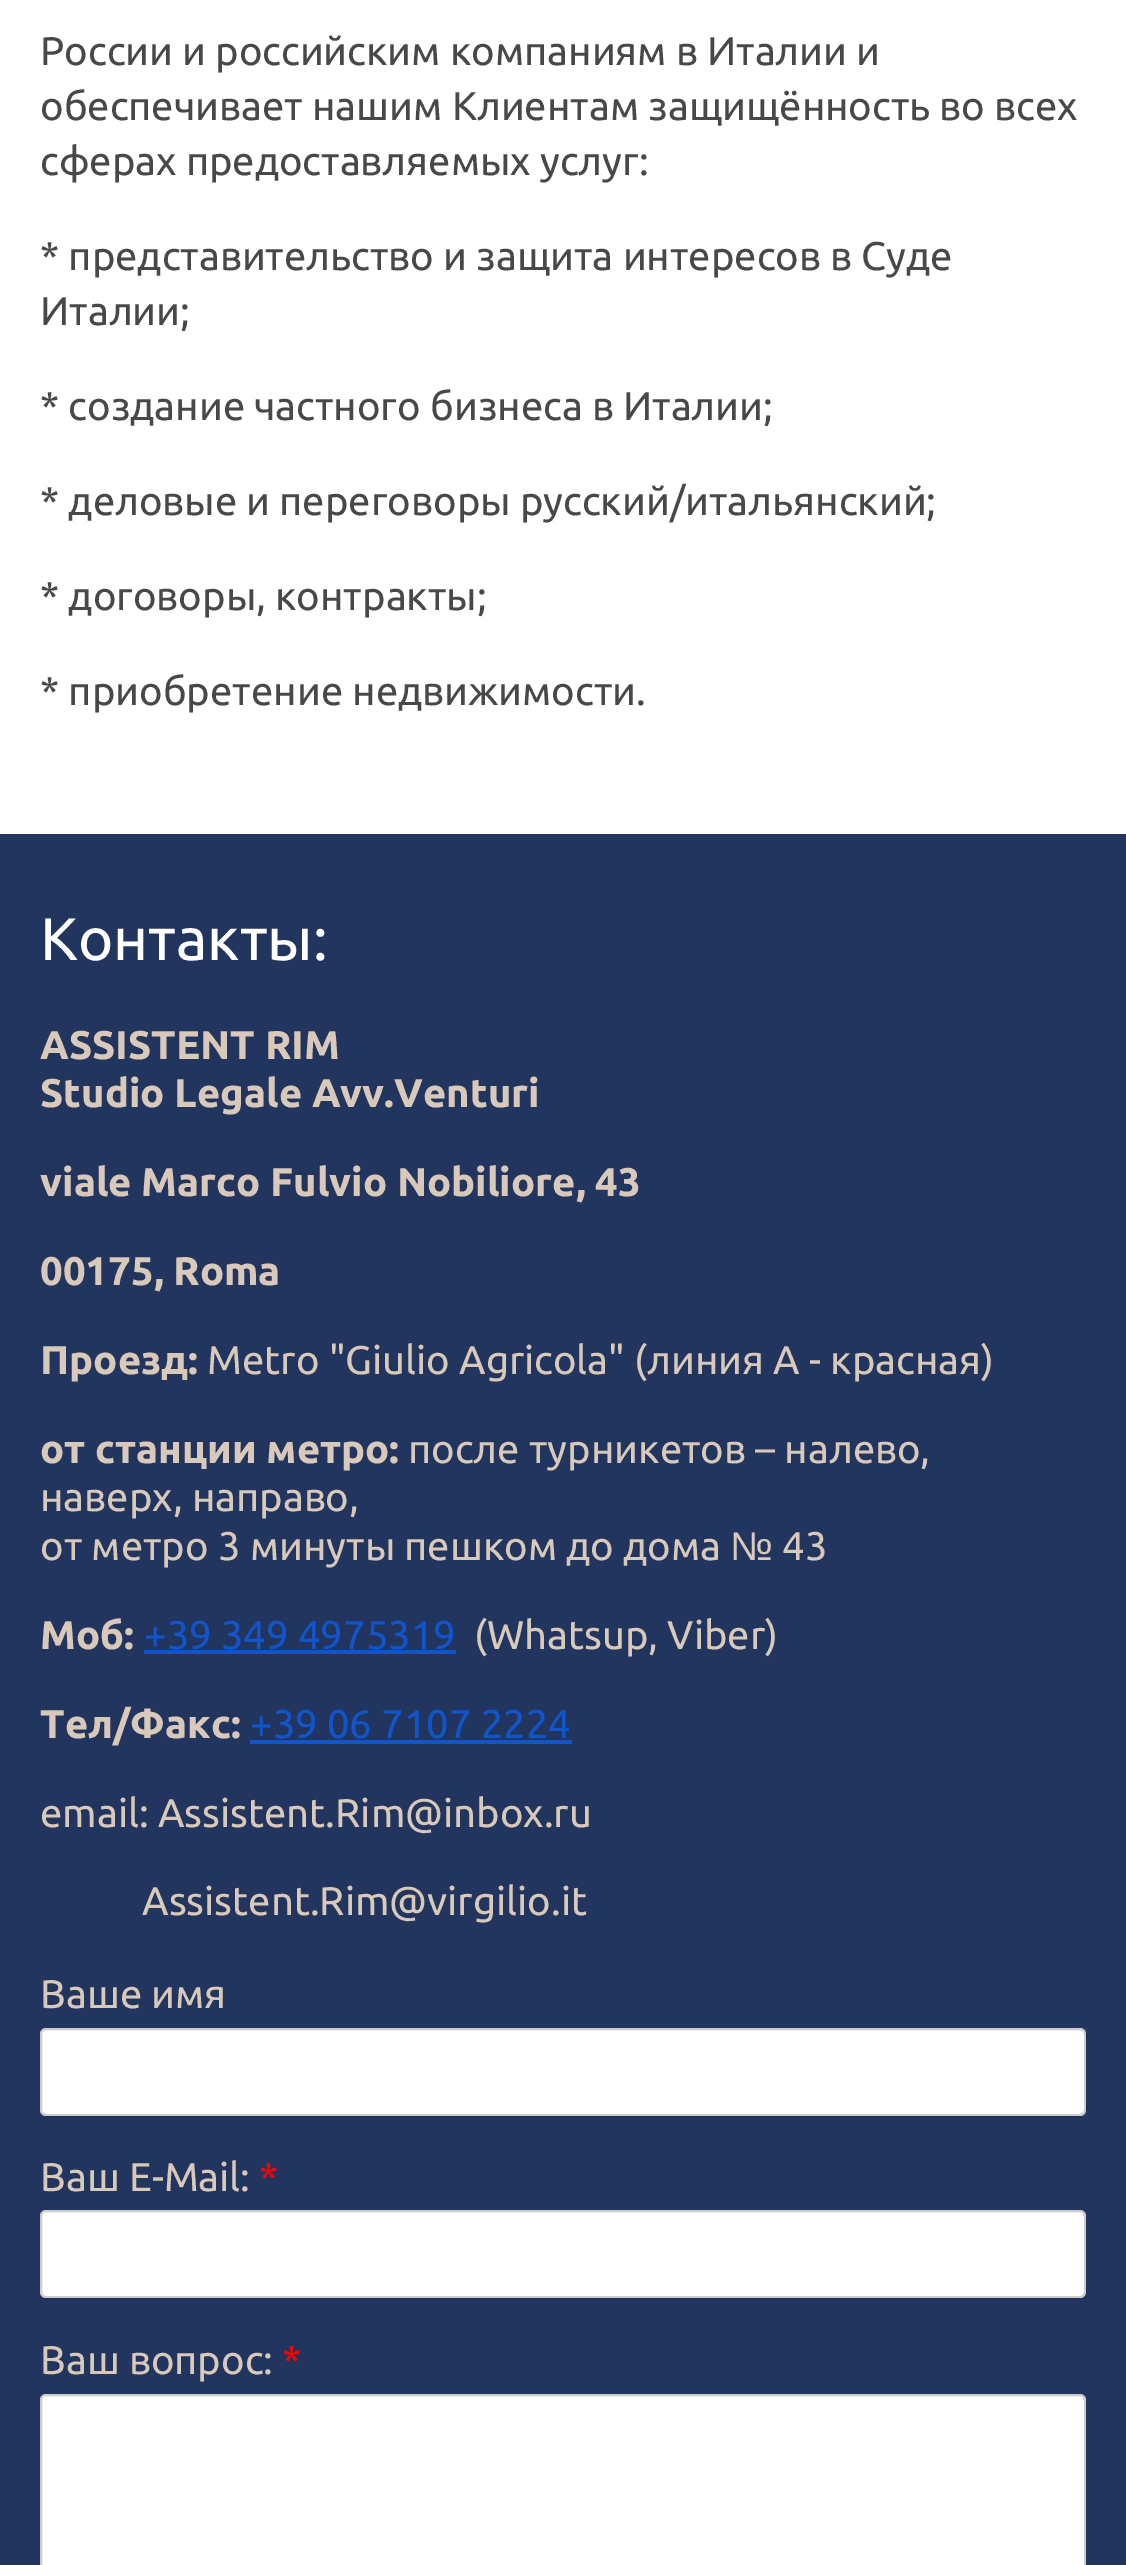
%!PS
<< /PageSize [1126 2565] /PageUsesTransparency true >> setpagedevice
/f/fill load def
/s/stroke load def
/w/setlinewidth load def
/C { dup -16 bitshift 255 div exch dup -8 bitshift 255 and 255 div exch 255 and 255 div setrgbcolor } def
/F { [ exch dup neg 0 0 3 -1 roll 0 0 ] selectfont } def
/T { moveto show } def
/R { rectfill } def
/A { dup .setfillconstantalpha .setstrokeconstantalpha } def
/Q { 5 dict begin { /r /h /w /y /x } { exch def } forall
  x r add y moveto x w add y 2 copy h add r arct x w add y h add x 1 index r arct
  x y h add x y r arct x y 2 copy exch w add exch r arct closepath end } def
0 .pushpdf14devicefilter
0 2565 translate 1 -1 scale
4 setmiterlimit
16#FFFFFF C
0 0 1126 2565 R
/Ubuntu-Regular 40 F
16#484848 C
(России и российским компаниям в Италии и) 40 65 T
(обеспечивает нашим Клиентам защищённость во всех) 40 120 T
(сферах предоставляемых услуг:) 40 175 T
(* представительство и защита интересов в Суде) 40 270 T
(Италии;) 40 325 T
(* создание частного бизнеса в Италии;) 40 420 T
(* деловые и переговоры русский/итальянский;) 40 515 T
(* договоры, контракты;) 40 610 T
(* приобретение недвижимости.) 40 705 T
16#22355E C
0 834 1126 1731 R
/Ubuntu-Regular 60 F
16#FFFFFF C
(Контакты:) 40 960 T
/Ubuntu-Bold 40 F
16#D9C9BA C
(ASSISTENT RIM) 40 1059 T
(Studio Legale Avv.Venturi) 40 1107 T
(viale Marco Fulvio Nobiliore, 43) 40 1196 T
(00175, Roma) 40 1285 T
(Проезд:) 40 1374 T
/Ubuntu-Regular 40 F
(Metro "Giulio Agricola" \(линия А - красная\)) 207 1374 T
/Ubuntu-Bold 40 F
(от станции метро:) 40 1463 T
/Ubuntu-Regular 40 F
(после турникетов – налево,) 408 1463 T
(наверх, направо,) 40 1511 T
(от метро 3 минуты пешком до дома) 40 1560 T
/LiberationSans-Regular 40 F
(№) 730 1560 T
/Ubuntu-Regular 40 F
(43) 782 1560 T
/Ubuntu-Bold 40 F
(Моб:) 40 1649 T
/Ubuntu-Regular 40 F
16#1155CC C
(+39 349 4975319) 144 1649 T
144 1650 312 4 R
16#D9C9BA C
(\(Whatsup, Viber\)) 474 1649 T
/Ubuntu-Bold 40 F
(Тел/Факс:) 40 1738 T
/Ubuntu-Regular 40 F
16#1155CC C
(+39 06 7107 2224) 250 1738 T
250 1740 322 4 R
16#D9C9BA C
(email: Assistent.Rim@inbox.ru) 40 1827 T
(Assistent.Rim@virgilio.it) 142 1915 T
(Ваше имя) 40 2008 T
16#FFFFFF C
40 2028 1046 88 6 Q f
0.2 A
16#000000 C
2 w
41 2029 1044 86 5 Q s
1 A
16#D9C9BA C
(Ваш E-Mail:) 40 2191 T
16#FF0000 C
(*) 259 2191 T
16#FFFFFF C
40 2210 1046 88 6 Q f
0.2 A
16#000000 C
41 2211 1044 86 5 Q s
1 A
16#D9C9BA C
(Ваш вопрос:) 40 2374 T
16#FF0000 C
(*) 282 2374 T
16#FFFFFF C
40 2394 1046 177 6 Q f
0.2 A
16#000000 C
41 2395 1044 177 5 Q s
.poppdf14devicefilter showpage
